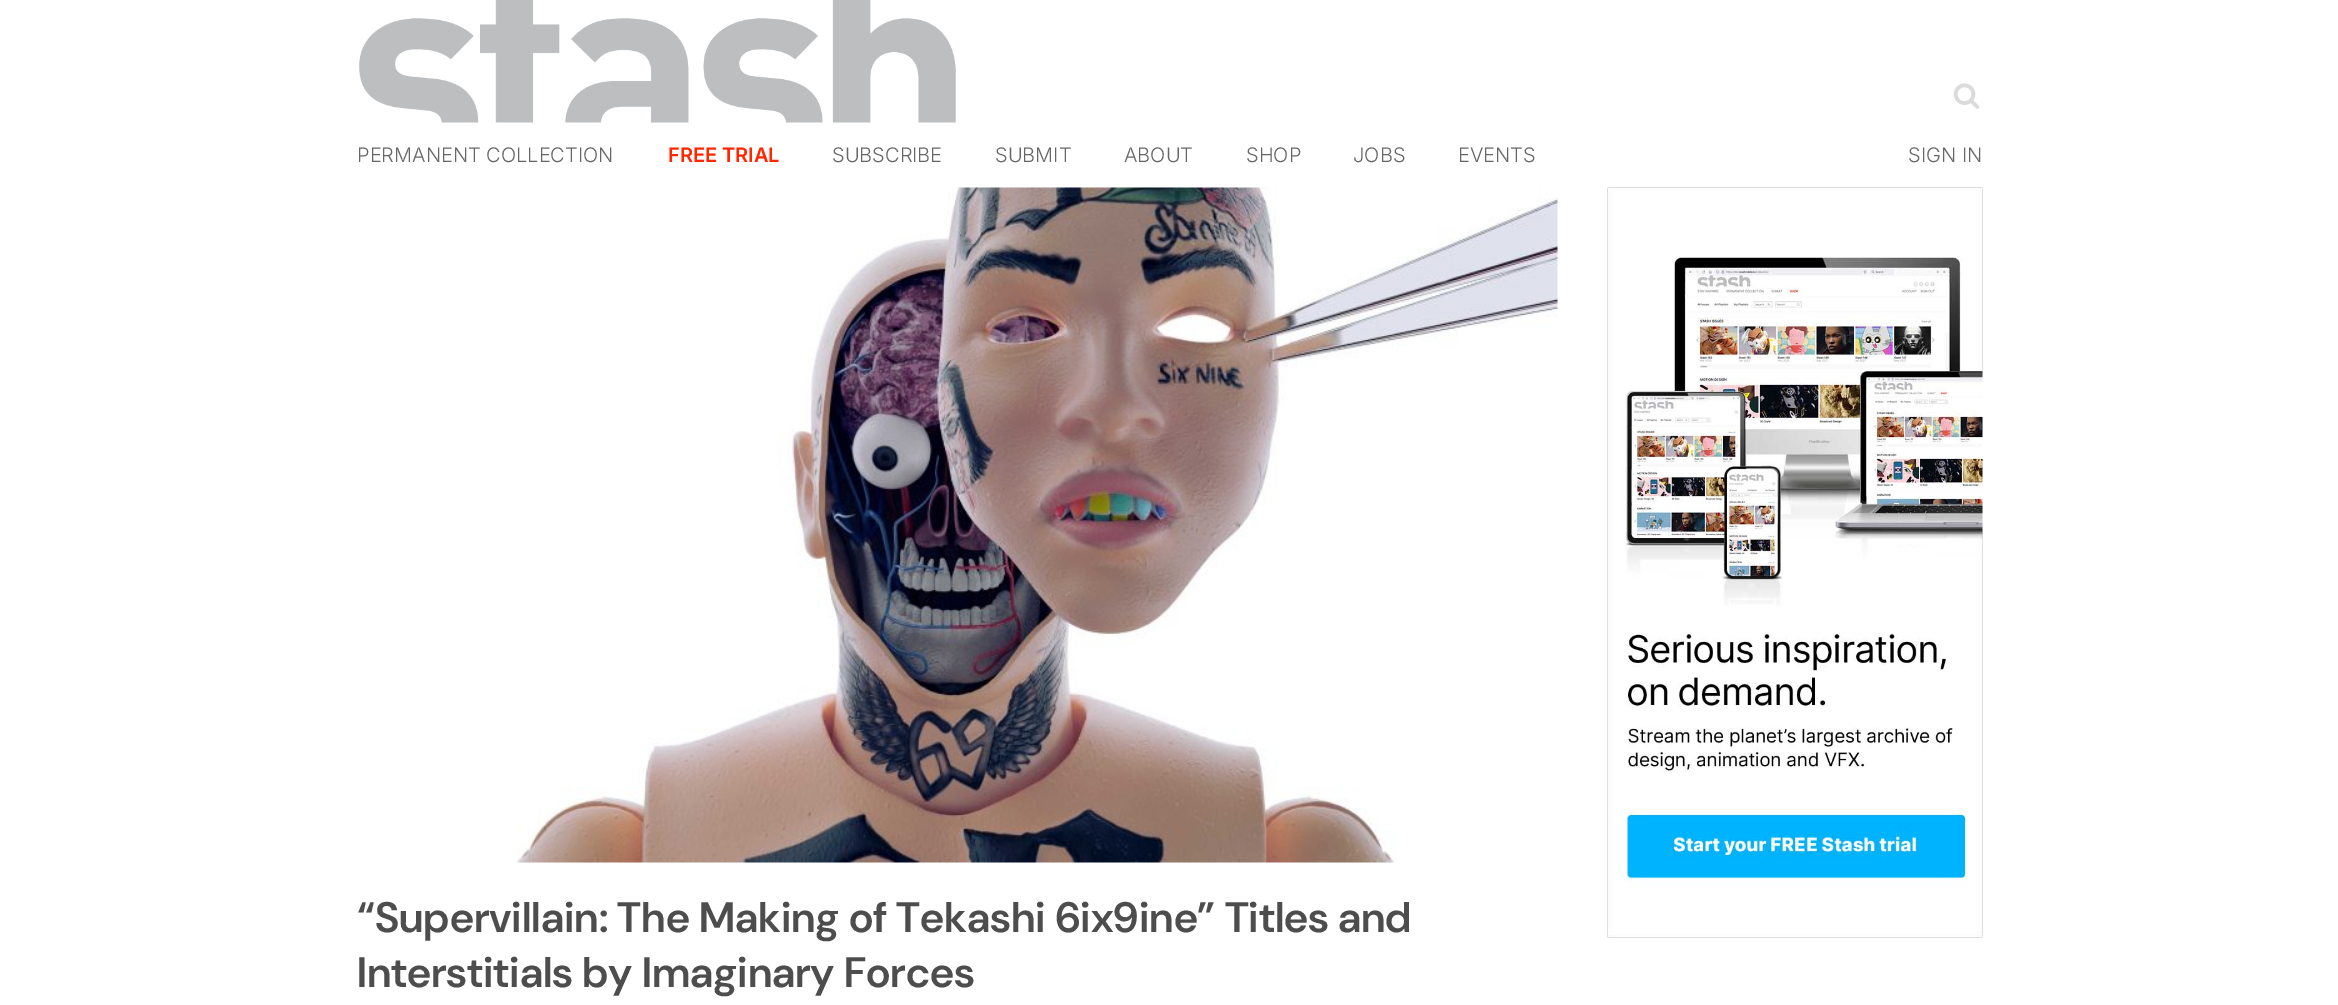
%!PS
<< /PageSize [2338 1005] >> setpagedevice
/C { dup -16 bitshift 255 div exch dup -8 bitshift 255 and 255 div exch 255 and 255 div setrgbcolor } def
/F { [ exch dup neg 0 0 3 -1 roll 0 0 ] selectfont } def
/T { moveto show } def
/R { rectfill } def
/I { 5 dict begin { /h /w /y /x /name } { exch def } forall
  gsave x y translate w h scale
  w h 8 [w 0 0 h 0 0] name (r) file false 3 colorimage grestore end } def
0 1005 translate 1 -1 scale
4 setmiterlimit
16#FFFFFF C
0 0 2338 1005 R
(1.rgb) 359 0 597 123 I
(2.rgb) 1953 83 27 26 I
/Inter-Light 20 F
16#666666 C
(PERMANENT COLLECTION) 357 162 T
/Inter-SemiBold 20 F
16#FF2600 C
(FREE TRIAL) 668 162 T
/Inter-Light 20 F
16#666666 C
(SUBSCRIBE) 832 162 T
(SUBMIT) 995 162 T
(ABOUT) 1124 162 T
(SHOP) 1246 162 T
(JOBS) 1353 162 T
(EVENTS) 1458 162 T
(SIGN IN) 1908 162 T
(3.rgb) 1607 187 376 751 I
(4.rgb) 517 187 1041 676 I
/DMSans-SemiBold 42.5 F
16#4D4D4D C
(“Supervillain: The Making of Tekashi 6ix9ine” Titles and) 357 932 T
(Interstitials by Imaginary Forces) 357 987 T
showpage
